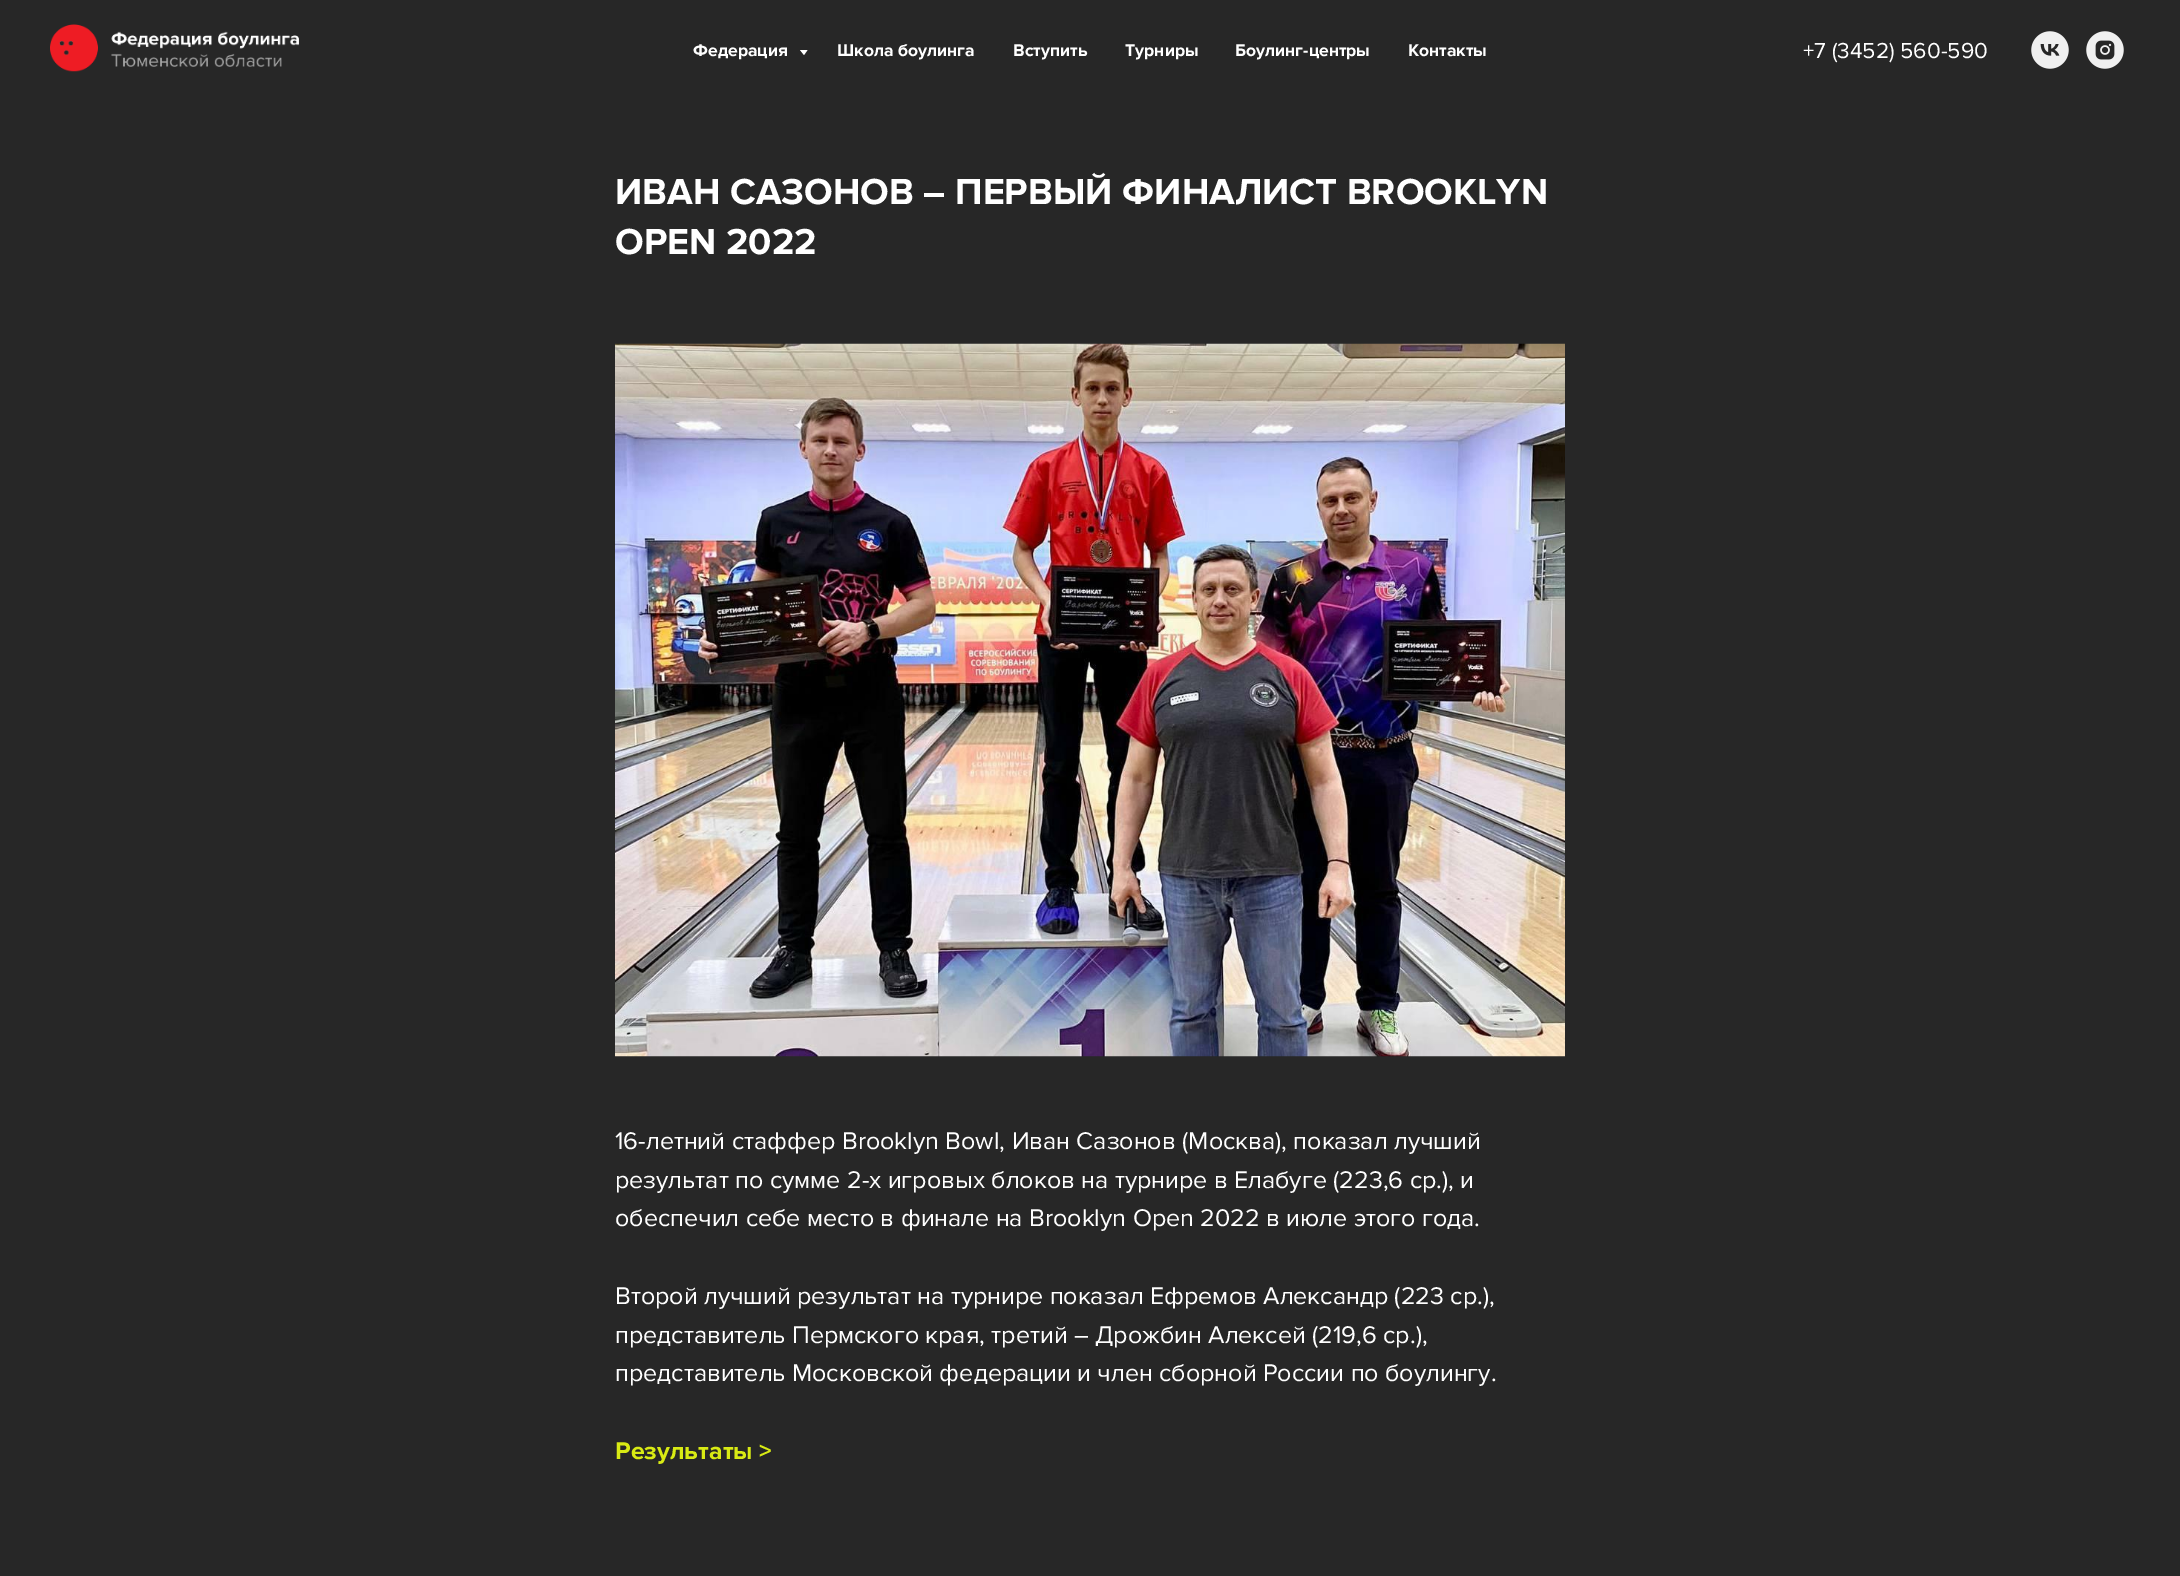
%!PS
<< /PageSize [2180 1576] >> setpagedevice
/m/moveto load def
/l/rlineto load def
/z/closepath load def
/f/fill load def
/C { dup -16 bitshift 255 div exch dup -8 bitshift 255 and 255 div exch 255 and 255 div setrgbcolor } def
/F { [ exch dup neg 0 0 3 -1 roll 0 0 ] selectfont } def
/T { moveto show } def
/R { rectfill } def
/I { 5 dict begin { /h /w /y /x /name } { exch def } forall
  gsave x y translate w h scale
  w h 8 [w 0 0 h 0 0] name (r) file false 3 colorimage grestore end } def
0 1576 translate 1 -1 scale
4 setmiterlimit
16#272727 C
0 0 2180 1576 R
(1.rgb) 50 24 249 48 I
/ProximaNova-Bold 17.5 F
16#FFFFFF C
(Федерация) 693 56 T
800 50 m 7.5 0 l -3.5 5 l z f
(Школа боулинга) 837 56 T
(Вступить) 1013 56 T
(Турниры) 1125 56 T
(Боулинг-центры) 1235 56 T
(Контакты) 1408 56 T
/ProximaNova-Regular 22.5 F
(+7 \(3452\) 560-590) 1803 58 T
(2.rgb) 2031 31 38 38 I
(3.rgb) 2086 31 38 38 I
/ProximaNova-Bold 37.5 F
(ИВАН САЗОНОВ – ПЕРВЫЙ ФИНАЛИСТ BROOKLYN) 615 204 T
(OPEN 2022) 615 254 T
(4.rgb) 615 343 950 714 I
/ProximaNova-Regular 25 F
(16-летний стаффер Brooklyn Bowl, Иван Сазонов \(Москва\), показал лучший) 615 1149 T
(результат по сумме 2-х игровых блоков на турнире в Елабуге \(223,6 ср.\), и) 615 1188 T
(обеспечил себе место в финале на Brooklyn Open 2022 в июле этого года.) 615 1226 T
(Второй лучший результат на турнире показал Ефремов Александр \(223 ср.\),) 615 1304 T
(представитель Пермского края, третий – Дрожбин Алексей \(219,6 ср.\),) 615 1343 T
(представитель Московской федерации и член сборной России по боулингу.) 615 1381 T
/ProximaNova-Bold 25 F
16#D8EA14 C
(Результаты >) 615 1459 T
showpage
